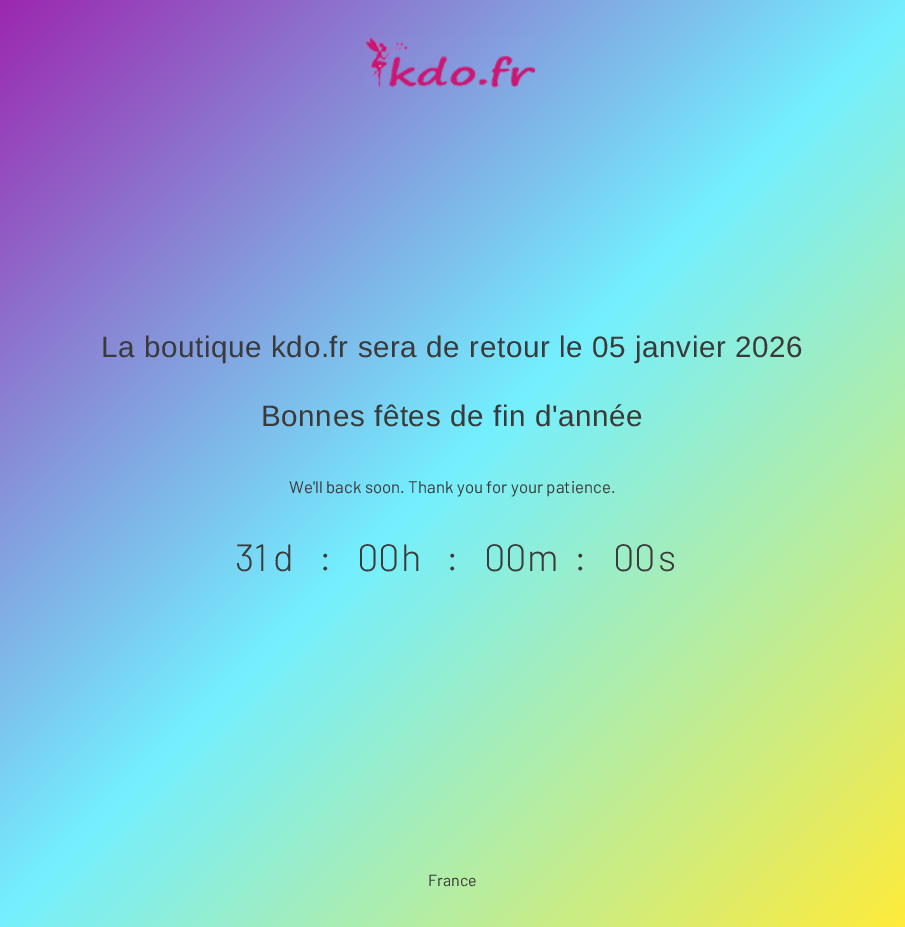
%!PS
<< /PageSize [905 927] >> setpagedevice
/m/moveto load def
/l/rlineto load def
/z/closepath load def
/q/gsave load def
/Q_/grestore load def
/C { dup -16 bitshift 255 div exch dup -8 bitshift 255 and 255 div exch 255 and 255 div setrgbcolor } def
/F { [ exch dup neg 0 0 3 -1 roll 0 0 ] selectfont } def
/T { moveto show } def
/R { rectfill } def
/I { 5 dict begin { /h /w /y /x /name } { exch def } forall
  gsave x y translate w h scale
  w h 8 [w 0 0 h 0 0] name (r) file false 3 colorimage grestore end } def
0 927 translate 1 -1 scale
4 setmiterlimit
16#FFFFFF C
0 0 905 927 R
q 0 0 m 905 0 l 0 927 l -905 0 l z clip newpath
<< /ShadingType 2 /ColorSpace /DeviceRGB /Coords [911 922 -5.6 5.6] /Extend [true true] /Function << /FunctionType 3 /Domain [0 1] /Functions [<< /FunctionType 2 /Domain [0 1] /C0 [1 .922 .231] /C1 [.455 .937 1] /N 1 >> << /FunctionType 2 /Domain [0 1] /C0 [.455 .937 1] /C1 [.612 .153 .69] /N 1 >>] /Bounds [.5] /Encode [0 1 0 1] >> >> shfill Q_
(1.rgb) 366 37 170 51 I
/LiberationSans-Regular 29.6 F
16#3A3A3A C
101 357 m .6 0 (La boutique kdo.fr sera de retour le 05 janvier 2026) ashow
261 426 m .6 0 (Bonnes fêtes de fin d'année) ashow
/Barlow-Regular 16.9 F
(We'll back soon. Thank you for your patience.) 289 493 T
/Barlow-Light 38 F
(31) 235 571 T
(d) 273 571 T
(:) 319 571 T
(00) 357 571 T
(h) 401 571 T
(:) 446 571 T
(00m) 484 571 T
(:) 574 571 T
(00) 613 571 T
(s) 658 571 T
/Barlow-Regular 16 F
(France) 428 886 T
showpage
